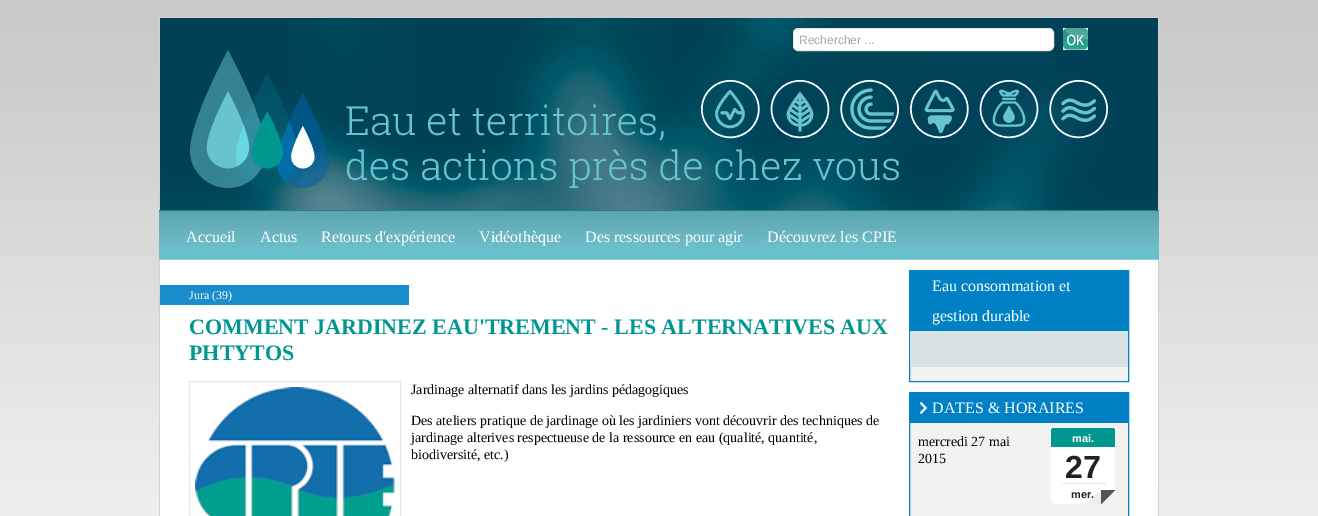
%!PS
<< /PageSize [1318 516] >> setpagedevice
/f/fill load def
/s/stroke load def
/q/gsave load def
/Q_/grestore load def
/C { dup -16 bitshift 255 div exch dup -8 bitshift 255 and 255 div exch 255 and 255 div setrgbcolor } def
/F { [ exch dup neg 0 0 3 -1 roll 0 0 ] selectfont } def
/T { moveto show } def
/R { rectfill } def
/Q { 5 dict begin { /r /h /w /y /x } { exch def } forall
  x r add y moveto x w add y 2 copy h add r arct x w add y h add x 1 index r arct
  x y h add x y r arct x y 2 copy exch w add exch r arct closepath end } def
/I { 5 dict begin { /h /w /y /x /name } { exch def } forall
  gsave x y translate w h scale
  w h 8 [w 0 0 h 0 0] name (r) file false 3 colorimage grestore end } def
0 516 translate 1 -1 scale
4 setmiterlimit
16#FFFFFF C
0 0 1318 516 R
(1.rgb) 0 0 1318 516 I
160 260 998 256 R
(2.rgb) 160 18 998 192 I
16#D1D1D1 C
159 17 1000 1 R
1158 17 1 193 R
159 17 1 193 R
16#FFFFFF C
793.5 28.5 260 22 4.5 Q q f Q_
16#EAEAEA C
s
/LiberationSans-Regular 12 F
16#A9A9A9 C
(Rechercher ...) 799 44 T
(3.rgb) 1063 28 25 22 I
(4.rgb) 159 210 1000 50 I
/LiberationSerif-Regular 16 F
16#FFFFFF C
(Accueil) 186 242 T
(Actus) 260 242 T
(Retours d'expérience) 321 242 T
(Vidéothèque) 479 242 T
(Des ressources pour agir) 585 242 T
(Découvrez les CPIE) 767 242 T
16#D1D1D1 C
1158 260 1 256 R
159 260 1 256 R
16#198DCC C
160 285 249 20 R
/LiberationSerif-Regular 12 F
16#FFFFFF C
(Jura \(39\)) 189 299 T
/LiberationSerif-Bold 22 F
16#009790 C
(COMMENT JARDINEZ EAU'TREMENT - LES ALTERNATIVES AUX) 189 334 T
(PHTYTOS) 189 360 T
16#E5E5E5 C
189.5 381.5 211 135 rectstroke
(5.rgb) 195 387 200 129 I
/LiberationSerif-Regular 14 F
16#000000 C
(Jardinage alternatif dans les jardins pédagogiques) 411 394 T
(Des ateliers pratique de jardinage où les jardiniers vont découvrir des techniques de) 411 425 T
(jardinage alterives respectueuse de la ressource en eau \(qualité, quantité,) 411 442 T
(biodiversité, etc.\)) 411 459 T
16#F2F2F0 C
910 367 218 14 R
16#0081C6 C
909.5 270.5 219 111 rectstroke
910 271 218 60 R
/LiberationSerif-Regular 16 F
16#FFFFFF C
(Eau consommation et) 932 291 T
(gestion durable) 932 321 T
16#D9E2E2 C
910 331 218 36 R
16#F2F2F0 C
910 423 218 93 R
16#0081C6 C
909.5 392.5 219 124 rectstroke
910 393 218 30 R
(6.rgb) 920 402 7 12 I
16#FFFFFF C
(DATES & HORAIRES) 932 413 T
/LiberationSerif-Regular 14 F
16#000000 C
(mercredi 27 mai) 918 446 T
(2015) 918 463 T
(7.rgb) 1051 428 64 76 I
/LiberationSans-Bold 11 F
16#FFFFFF C
(mai.) 1072 442 T
/LiberationSans-Bold 32 F
16#222222 C
(27) 1065 478 T
/LiberationSans-Bold 11 F
(mer.) 1071 498 T
showpage
